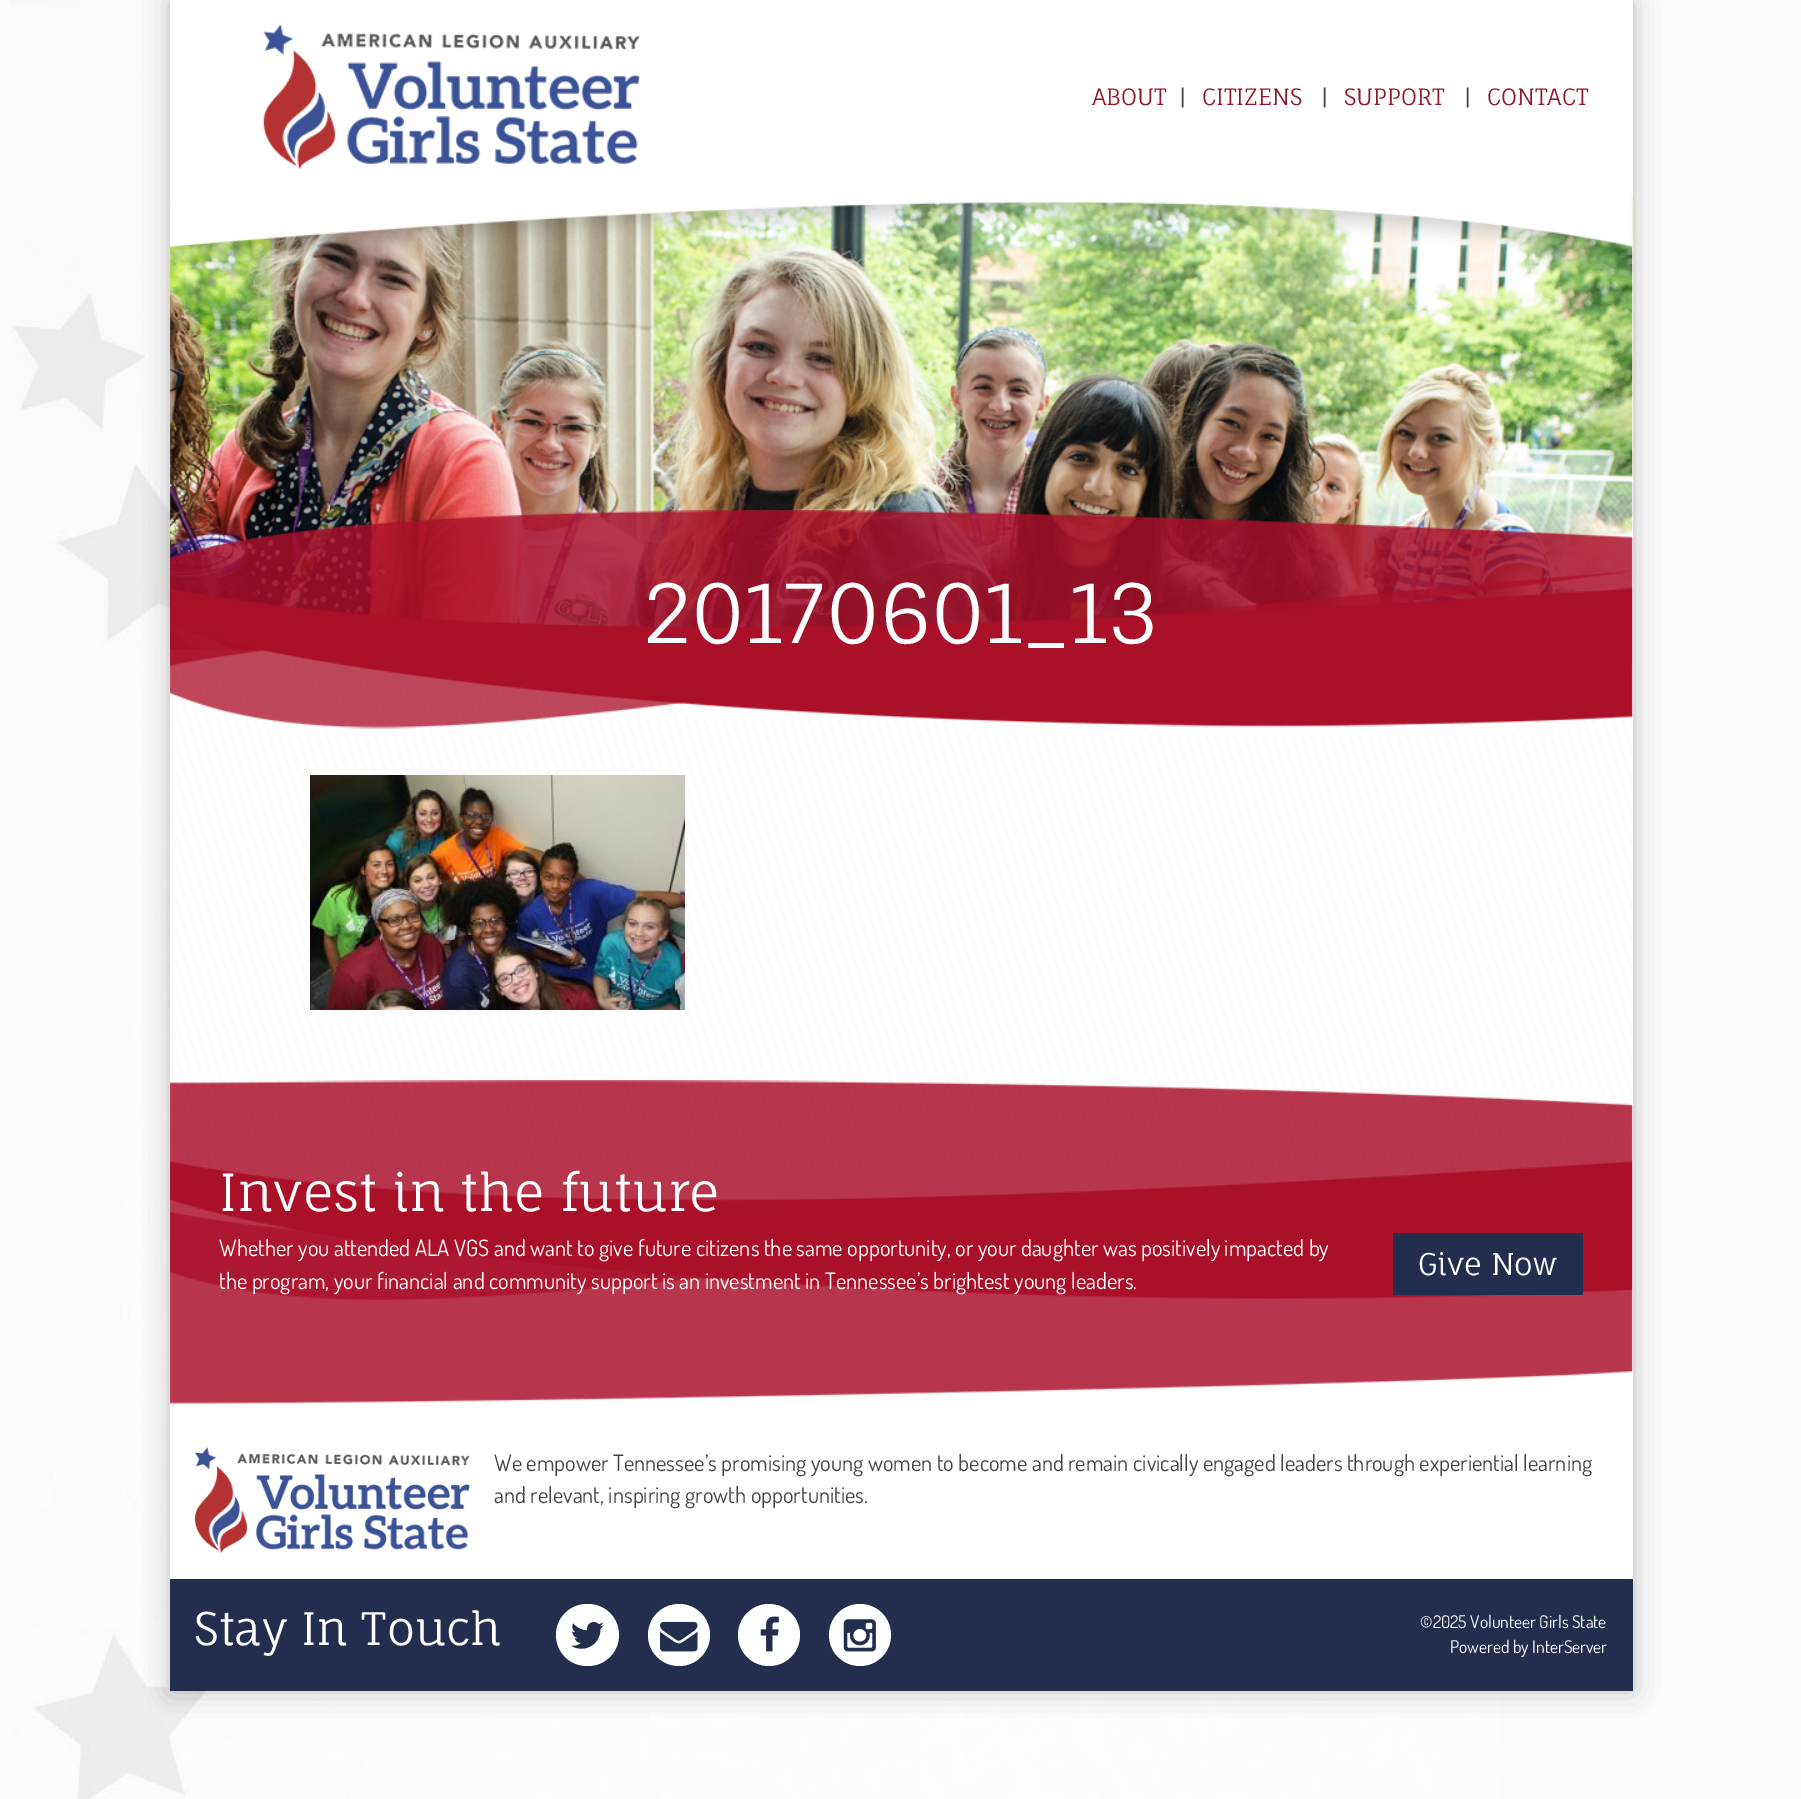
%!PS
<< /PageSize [1801 1799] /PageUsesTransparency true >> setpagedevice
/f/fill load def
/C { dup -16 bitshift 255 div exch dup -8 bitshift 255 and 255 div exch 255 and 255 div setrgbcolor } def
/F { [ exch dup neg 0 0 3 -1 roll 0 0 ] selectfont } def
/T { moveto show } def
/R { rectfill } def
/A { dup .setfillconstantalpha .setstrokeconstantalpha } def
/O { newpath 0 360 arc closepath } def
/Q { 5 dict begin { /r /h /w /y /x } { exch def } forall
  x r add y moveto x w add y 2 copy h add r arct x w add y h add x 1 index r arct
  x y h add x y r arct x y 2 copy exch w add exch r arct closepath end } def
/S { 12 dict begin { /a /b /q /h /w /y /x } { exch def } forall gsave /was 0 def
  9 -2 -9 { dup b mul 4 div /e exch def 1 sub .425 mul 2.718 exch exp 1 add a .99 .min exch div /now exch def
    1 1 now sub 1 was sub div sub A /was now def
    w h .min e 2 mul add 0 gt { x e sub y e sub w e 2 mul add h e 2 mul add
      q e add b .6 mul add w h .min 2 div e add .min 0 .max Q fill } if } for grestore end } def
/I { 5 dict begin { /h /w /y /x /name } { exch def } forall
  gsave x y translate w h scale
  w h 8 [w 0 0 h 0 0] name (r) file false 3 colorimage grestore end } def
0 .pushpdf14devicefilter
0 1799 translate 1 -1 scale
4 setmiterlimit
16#FBFBFB C
0 0 1801 1799 R
(1.rgb) 10 0 1490 1799 I
16#000000 C
170 0 1463 1691 0 12.5 .25 S
16#FFFFFF C
170 0 1463 1579 R
/FaunaOne-Regular 22.5 F
16#91172C C
(ABOUT) 1092 105 T
16#444444 C
(|) 1179 105 T
16#91172C C
(CITIZENS) 1202 105 T
16#444444 C
(|) 1321 105 T
16#91172C C
(SUPPORT) 1344 105 T
16#444444 C
(|) 1464 105 T
16#91172C C
(CONTACT) 1487 105 T
(2.rgb) 263 25 377 145 I
(4.rgb) 170 195 1463 455 I
(3.rgb) 170 195 1463 70 I
(6.rgb) 170 651 1462 520 I
(5.rgb) 170 510 1463 219 I
/FaunaOne-Regular 81.25 F
16#FFFFFF C
(20170601_13) 643 643 T
(7.rgb) 310 775 375 235 I
(8.rgb) 170 1080 1463 324 I
/FaunaOne-Regular 51.25 F
(Invest in the future) 219 1211 T
/Dosis-Regular 22.5 F
(Whether you attended ALA VGS and want to give future citizens the same opportunity, or your daughter was positively impacted by) 219 1256 T
(the program, your financial and community support is an investment in Tennessee’s brightest young leaders.) 219 1289 T
16#232E4F C
1393 1233 190 62 R
/FaunaOne-Regular 30 F
16#FFFFFF C
(Give Now) 1418 1275 T
(9.rgb) 195 1447 275 107 I
/Dosis-Regular 22.5 F
16#444444 C
(We empower Tennessee’s promising young women to become and remain civically engaged leaders through experiential learning) 494 1471 T
(and relevant, inspiring growth opportunities.) 494 1503 T
16#232E4F C
170 1579 1463 112 R
/FaunaOne-Regular 45 F
16#FFFFFF C
(Stay In Touch) 194 1645 T
556 1604 63 62 31 Q f
(10.rgb) 571 1622 33 27 I
679 1635 31 O f
(11.rgb) 660 1621 38 31 I
769 1635 31 O f
(12.rgb) 760 1616 19 36 I
860 1635 31 O f
(13.rgb) 843 1619 33 33 I
/Dosis-Regular 17.5 F
(©2025 Volunteer Girls State) 1420 1628 T
(Powered by InterServer) 1450 1653 T
.poppdf14devicefilter showpage
